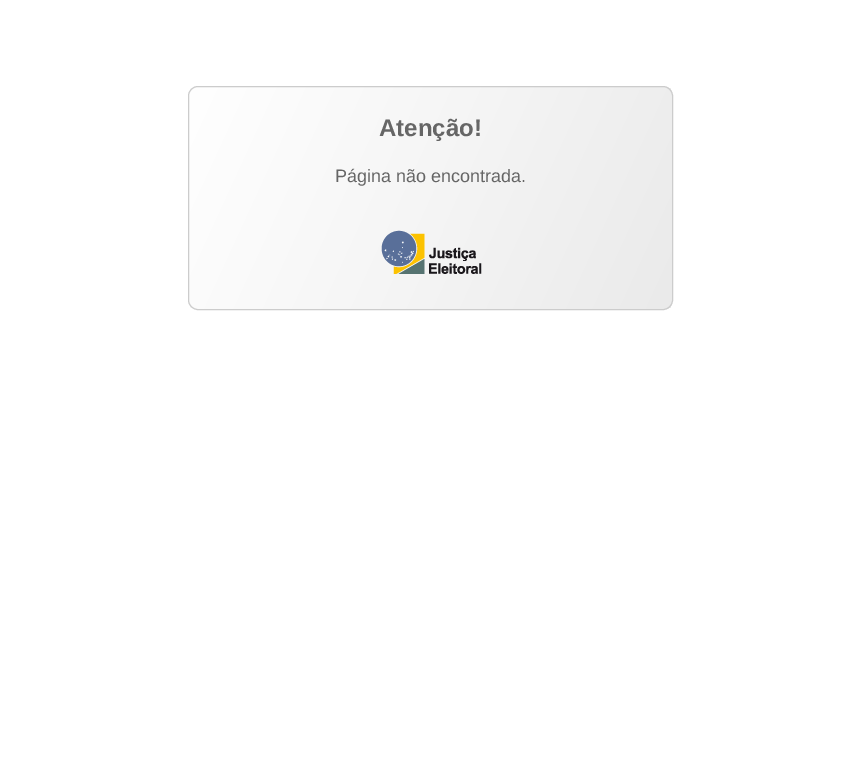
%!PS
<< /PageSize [861 766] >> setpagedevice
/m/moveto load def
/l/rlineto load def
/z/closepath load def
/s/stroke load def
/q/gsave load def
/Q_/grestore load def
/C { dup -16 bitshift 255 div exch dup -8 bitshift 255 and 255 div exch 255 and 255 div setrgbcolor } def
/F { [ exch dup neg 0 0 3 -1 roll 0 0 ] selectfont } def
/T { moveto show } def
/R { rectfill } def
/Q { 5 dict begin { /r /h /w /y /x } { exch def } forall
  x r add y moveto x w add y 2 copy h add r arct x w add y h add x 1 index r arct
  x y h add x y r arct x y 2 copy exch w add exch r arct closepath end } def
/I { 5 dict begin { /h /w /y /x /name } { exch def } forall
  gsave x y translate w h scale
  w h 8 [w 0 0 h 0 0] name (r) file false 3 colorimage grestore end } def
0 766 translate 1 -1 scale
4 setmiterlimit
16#FFFFFF C
0 0 861 766 R
q
188 86 485 224 10 Q clip newpath
q 189 87 m 483 0 l 0 222 l -483 0 l z clip newpath
<< /ShadingType 2 /ColorSpace /DeviceRGB /Coords [189 87 672 309] /Extend [true true] /Function << /FunctionType 2 /Domain [0 1] /C0 [1 1 1] /C1 [.918 .918 .918] /N 1 >> >> shfill Q_
Q_
16#CCCCCC C
188.5 86.5 484 223 9.5 Q s
/LiberationSans-Bold 24 F
16#666666 C
(Atenção!) 379 136 T
/LiberationSans-Regular 18 F
(Página não encontrada.) 335 182 T
(1.rgb) 381 230 101 44 I
showpage
